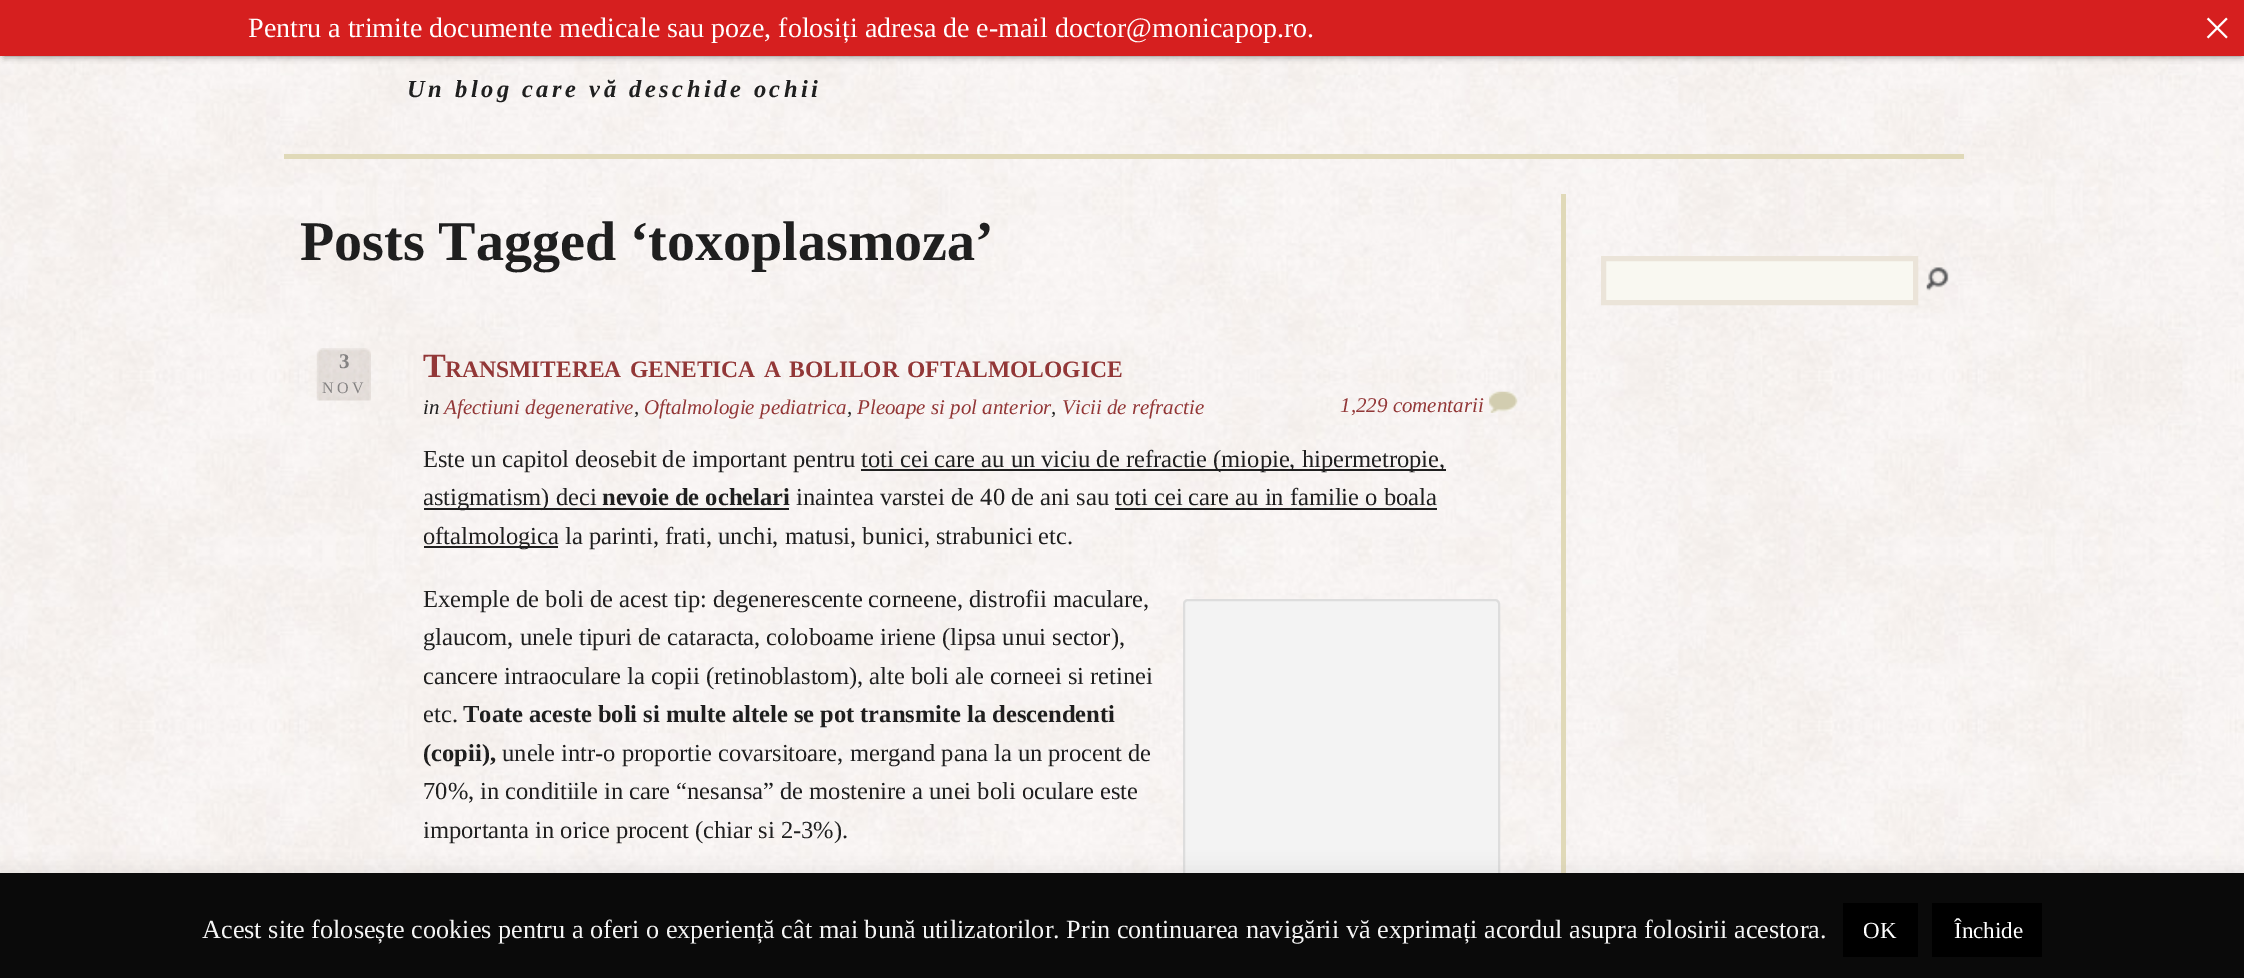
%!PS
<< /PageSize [2244 978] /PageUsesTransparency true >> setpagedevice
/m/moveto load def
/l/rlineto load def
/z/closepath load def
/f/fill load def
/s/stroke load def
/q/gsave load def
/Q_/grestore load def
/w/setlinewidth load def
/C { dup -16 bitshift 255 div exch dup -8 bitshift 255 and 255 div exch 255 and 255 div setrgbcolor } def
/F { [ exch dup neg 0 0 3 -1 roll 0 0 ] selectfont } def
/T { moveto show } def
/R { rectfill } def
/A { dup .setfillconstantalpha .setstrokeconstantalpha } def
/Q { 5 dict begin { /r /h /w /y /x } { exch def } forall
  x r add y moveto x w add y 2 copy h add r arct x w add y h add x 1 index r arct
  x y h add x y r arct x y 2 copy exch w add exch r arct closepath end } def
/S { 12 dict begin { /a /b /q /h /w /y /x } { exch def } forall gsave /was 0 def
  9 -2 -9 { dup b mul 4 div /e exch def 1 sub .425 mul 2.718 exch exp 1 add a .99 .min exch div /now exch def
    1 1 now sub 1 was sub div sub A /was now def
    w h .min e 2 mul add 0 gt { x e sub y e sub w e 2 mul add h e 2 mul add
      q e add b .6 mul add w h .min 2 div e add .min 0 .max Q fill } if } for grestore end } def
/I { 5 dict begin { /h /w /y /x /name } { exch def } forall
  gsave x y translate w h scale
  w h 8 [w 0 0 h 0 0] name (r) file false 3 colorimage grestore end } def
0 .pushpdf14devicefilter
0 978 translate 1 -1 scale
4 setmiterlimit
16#FFFFFF C
0 0 2244 978 R
(1.rgb) 0 56 2244 817 I
16#000000 C
4 7 2238 49 0 3.5 .5 S
16#D61F1F C
0 0 2244 56 R
/LiberationSerif-Regular 28 F
16#FFFFFF C
(Pentru a trimite documente medicale sau poze, folosiți adresa de e-mail doctor@monicapop.ro.) 248 37 T
(2.rgb) 2206 17 22 22 I
16#E0D9B8 C
1561 194 5 679 R
/LiberationSerif-Bold 56 F
16#1F1F1F C
(Posts Tagged ‘toxoplasmoza’) 300 260 T
(3.rgb) 316 348 55 53 I
/LiberationSerif-Bold 21 F
16#848282 C
(3) 339 368 T
/LiberationSerif-Regular 16 F
322 393 m 3.5 0 (NOV) ashow
/LiberationSerif-Bold 34 F
16#923737 C
(T) 423 377 T
/LiberationSerif-Bold 23.5 F
(RANSMITEREA) 445 377 T
(GENETICA) 630 377 T
(A) 764 377 T
(BOLILOR) 789 377 T
(OFTALMOLOGICE) 907 377 T
/LiberationSerif-Italic 21 F
16#1F1F1F C
(in) 423 414 T
16#923737 C
(Afectiuni degenerative) 444 414 T
16#1F1F1F C
(,) 634 414 T
16#923737 C
(Oftalmologie pediatrica) 644 414 T
16#1F1F1F C
(,) 847 414 T
16#923737 C
(Pleoape si pol anterior) 857 414 T
16#1F1F1F C
(,) 1051 414 T
16#923737 C
(Vicii de refractie) 1062 414 T
(1,229 comentarii) 1340 412 T
(4.rgb) 1489 391 29 22 I
/LiberationSerif-Regular 24.5 F
16#1F1F1F C
(Este un capitol deosebit de important pentru) 423 467 T
861 469 585 2 R
(toti cei care au un viciu de refractie \(miopie, hipermetropie,) 861 467 T
424 508 365 2 R
q
424 441 1093 116 rectclip
(astigmatism\) deci) 423 505 T
Q_
/LiberationSerif-Bold 24.5 F
(nevoie de ochelari) 602 505 T
/LiberationSerif-Regular 24.5 F
(inaintea varstei de 40 de ani sau toti cei care au in familie o boala) 796 505 T
424 546 134 2 R
q
424 441 1093 116 rectclip
(oftalmologica) 423 544 T
Q_
1115 508 322 2 R
(la parinti, frati, unchi, matusi, bunici, strabunici etc.) 565 544 T
(Exemple de boli de acest tip: degenerescente corneene, distrofii maculare,) 423 607 T
(glaucom, unele tipuri de cataracta, coloboame iriene \(lipsa unui sector\),) 423 645 T
q
424 581 742 270 rectclip
(cancere intraoculare la copii \(retinoblastom\), alte boli ale corneei si retinei) 423 684 T
(etc.) 423 722 T
Q_
/LiberationSerif-Bold 24.5 F
(Toate aceste boli si multe altele se pot transmite la descendenti) 463 722 T
q
424 581 742 270 rectclip
(\(copii\),) 423 761 T
Q_
/LiberationSerif-Regular 24.5 F
(unele intr-o proportie covarsitoare, mergand pana la un procent de) 502 761 T
(70%, in conditiile in care “nesansa” de mostenire a unei boli oculare este) 423 799 T
q
424 581 742 270 rectclip
(importanta in orice procent \(chiar si 2-3%\).) 423 838 T
Q_
16#F3F3F3 C
1184 600 315 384 4 Q q f Q_
16#DDDDDD C
2 w
s
16#F9F8F1 C
1603.5 258.5 m 312 0 l 0 44 l -312 0 l z q f Q_
16#EBE4D9 C
5 w
s
(5.rgb) 1926 267 23 24 I
16#ACABAB C
0 872 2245 105 0 9 .3 S
16#0A0A0A C
0 873 2244 105 R
/LiberationSerif-Regular 26.25 F
16#F5F5F5 C
(Acest site folosește cookies pentru a oferi o experiență cât mai bună utilizatorilor. Prin continuarea navigării vă exprimați acordul asupra folosirii acestora.) 202 938 T
16#000000 C
1843 903 75 54 R
/LiberationSerif-Regular 23 F
16#FFFFFF C
(OK) 1863 938 T
16#000000 C
1932 903 110 54 R
16#FFFFFF C
(Închide) 1954 938 T
16#E0D9B8 C
284 154 1680 5 R
/LiberationSerif-BoldItalic 24.5 F
16#1F1F1F C
407 97 m 3.5 0 (Un blog care vă deschide ochii) ashow
.poppdf14devicefilter showpage
